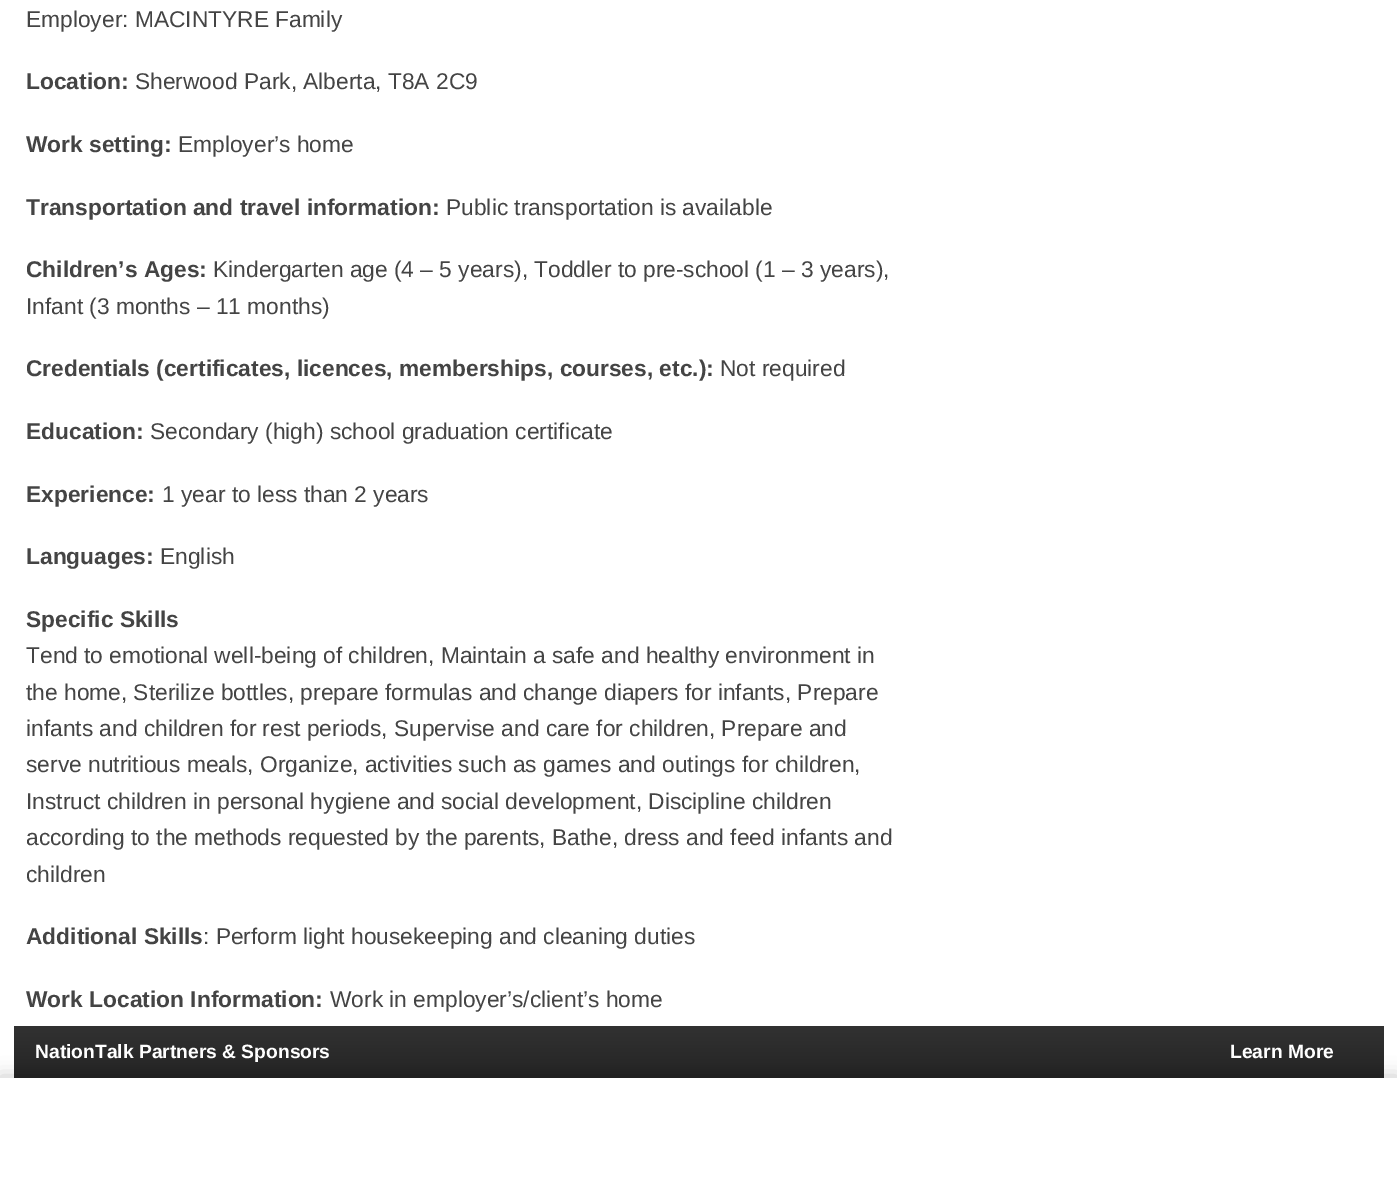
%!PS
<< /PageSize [1397 1183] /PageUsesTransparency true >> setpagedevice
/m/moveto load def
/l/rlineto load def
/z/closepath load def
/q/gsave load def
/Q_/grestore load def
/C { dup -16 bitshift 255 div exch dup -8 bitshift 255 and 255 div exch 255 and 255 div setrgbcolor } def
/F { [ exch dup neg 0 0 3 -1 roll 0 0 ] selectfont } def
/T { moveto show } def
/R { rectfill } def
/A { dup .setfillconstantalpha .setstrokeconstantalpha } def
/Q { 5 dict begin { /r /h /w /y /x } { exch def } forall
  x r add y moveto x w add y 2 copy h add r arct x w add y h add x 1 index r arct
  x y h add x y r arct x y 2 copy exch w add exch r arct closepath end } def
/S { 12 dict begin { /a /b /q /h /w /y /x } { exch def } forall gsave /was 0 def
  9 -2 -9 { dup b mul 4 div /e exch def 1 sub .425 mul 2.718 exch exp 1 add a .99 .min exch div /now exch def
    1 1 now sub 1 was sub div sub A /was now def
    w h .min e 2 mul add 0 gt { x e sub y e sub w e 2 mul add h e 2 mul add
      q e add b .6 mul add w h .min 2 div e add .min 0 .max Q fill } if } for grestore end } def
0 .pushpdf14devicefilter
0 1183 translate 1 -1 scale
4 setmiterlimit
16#FFFFFF C
0 0 1397 1183 R
/LiberationSans-Regular 22.75 F
16#444444 C
(Employer: MACINTYRE Family) 26 27 T
/LiberationSans-Bold 22.75 F
(Location:) 26 89 T
/LiberationSans-Regular 22.75 F
(Sherwood Park, Alberta, T8A 2C9) 135 89 T
/LiberationSans-Bold 22.75 F
(Work setting:) 26 152 T
/LiberationSans-Regular 22.75 F
(Employer’s home) 178 152 T
/LiberationSans-Bold 22.75 F
(Transportation and travel information:) 26 215 T
/LiberationSans-Regular 22.75 F
(Public transportation is available) 446 215 T
/LiberationSans-Bold 22.75 F
(Children’s Ages:) 26 277 T
/LiberationSans-Regular 22.75 F
(Kindergarten age \(4 – 5 years\), Toddler to pre-school \(1 – 3 years\),) 213 277 T
(Infant \(3 months – 11 months\)) 26 314 T
/LiberationSans-Bold 22.75 F
(Credentials \(certificates, licences, memberships, courses, etc.\):) 26 376 T
/LiberationSans-Regular 22.75 F
(Not required) 720 376 T
/LiberationSans-Bold 22.75 F
(Education:) 26 439 T
/LiberationSans-Regular 22.75 F
(Secondary \(high\) school graduation certificate) 150 439 T
/LiberationSans-Bold 22.75 F
(Experience:) 26 502 T
/LiberationSans-Regular 22.75 F
(1 year to less than 2 years) 162 502 T
/LiberationSans-Bold 22.75 F
(Languages:) 26 564 T
/LiberationSans-Regular 22.75 F
(English) 160 564 T
/LiberationSans-Bold 22.75 F
(Specific Skills) 26 627 T
/LiberationSans-Regular 22.75 F
(Tend to emotional well-being of children, Maintain a safe and healthy environment in) 26 663 T
(the home, Sterilize bottles, prepare formulas and change diapers for infants, Prepare) 26 700 T
(infants and children for rest periods, Supervise and care for children, Prepare and) 26 736 T
(serve nutritious meals, Organize, activities such as games and outings for children,) 26 772 T
(Instruct children in personal hygiene and social development, Discipline children) 26 809 T
(according to the methods requested by the parents, Bathe, dress and feed infants and) 26 845 T
(children) 26 882 T
/LiberationSans-Bold 22.75 F
(Additional Skills) 26 944 T
/LiberationSans-Regular 22.75 F
(: Perform light housekeeping and cleaning duties) 203 944 T
/LiberationSans-Bold 22.75 F
(Work Location Information:) 26 1007 T
/LiberationSans-Regular 22.75 F
(Work in employer’s/client’s home) 330 1007 T
q 14 1026 m 1370 0 l 0 52 l -1370 0 l z clip newpath
<< /ShadingType 2 /ColorSpace /DeviceRGB /Coords [699 1026 699 1078] /Extend [true true] /Function << /FunctionType 2 /Domain [0 1] /C0 [.196 .196 .196] /C1 [.141 .141 .141] /N 1 >> >> shfill Q_
16#000000 C
0 1076 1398 105 0 9 .2 S
/LiberationSans-Bold 19.25 F
16#FFFFFF C
(NationTalk Partners & Sponsors) 35 1058 T
(Learn More) 1230 1058 T
0 1078 1397 105 R
.poppdf14devicefilter showpage
